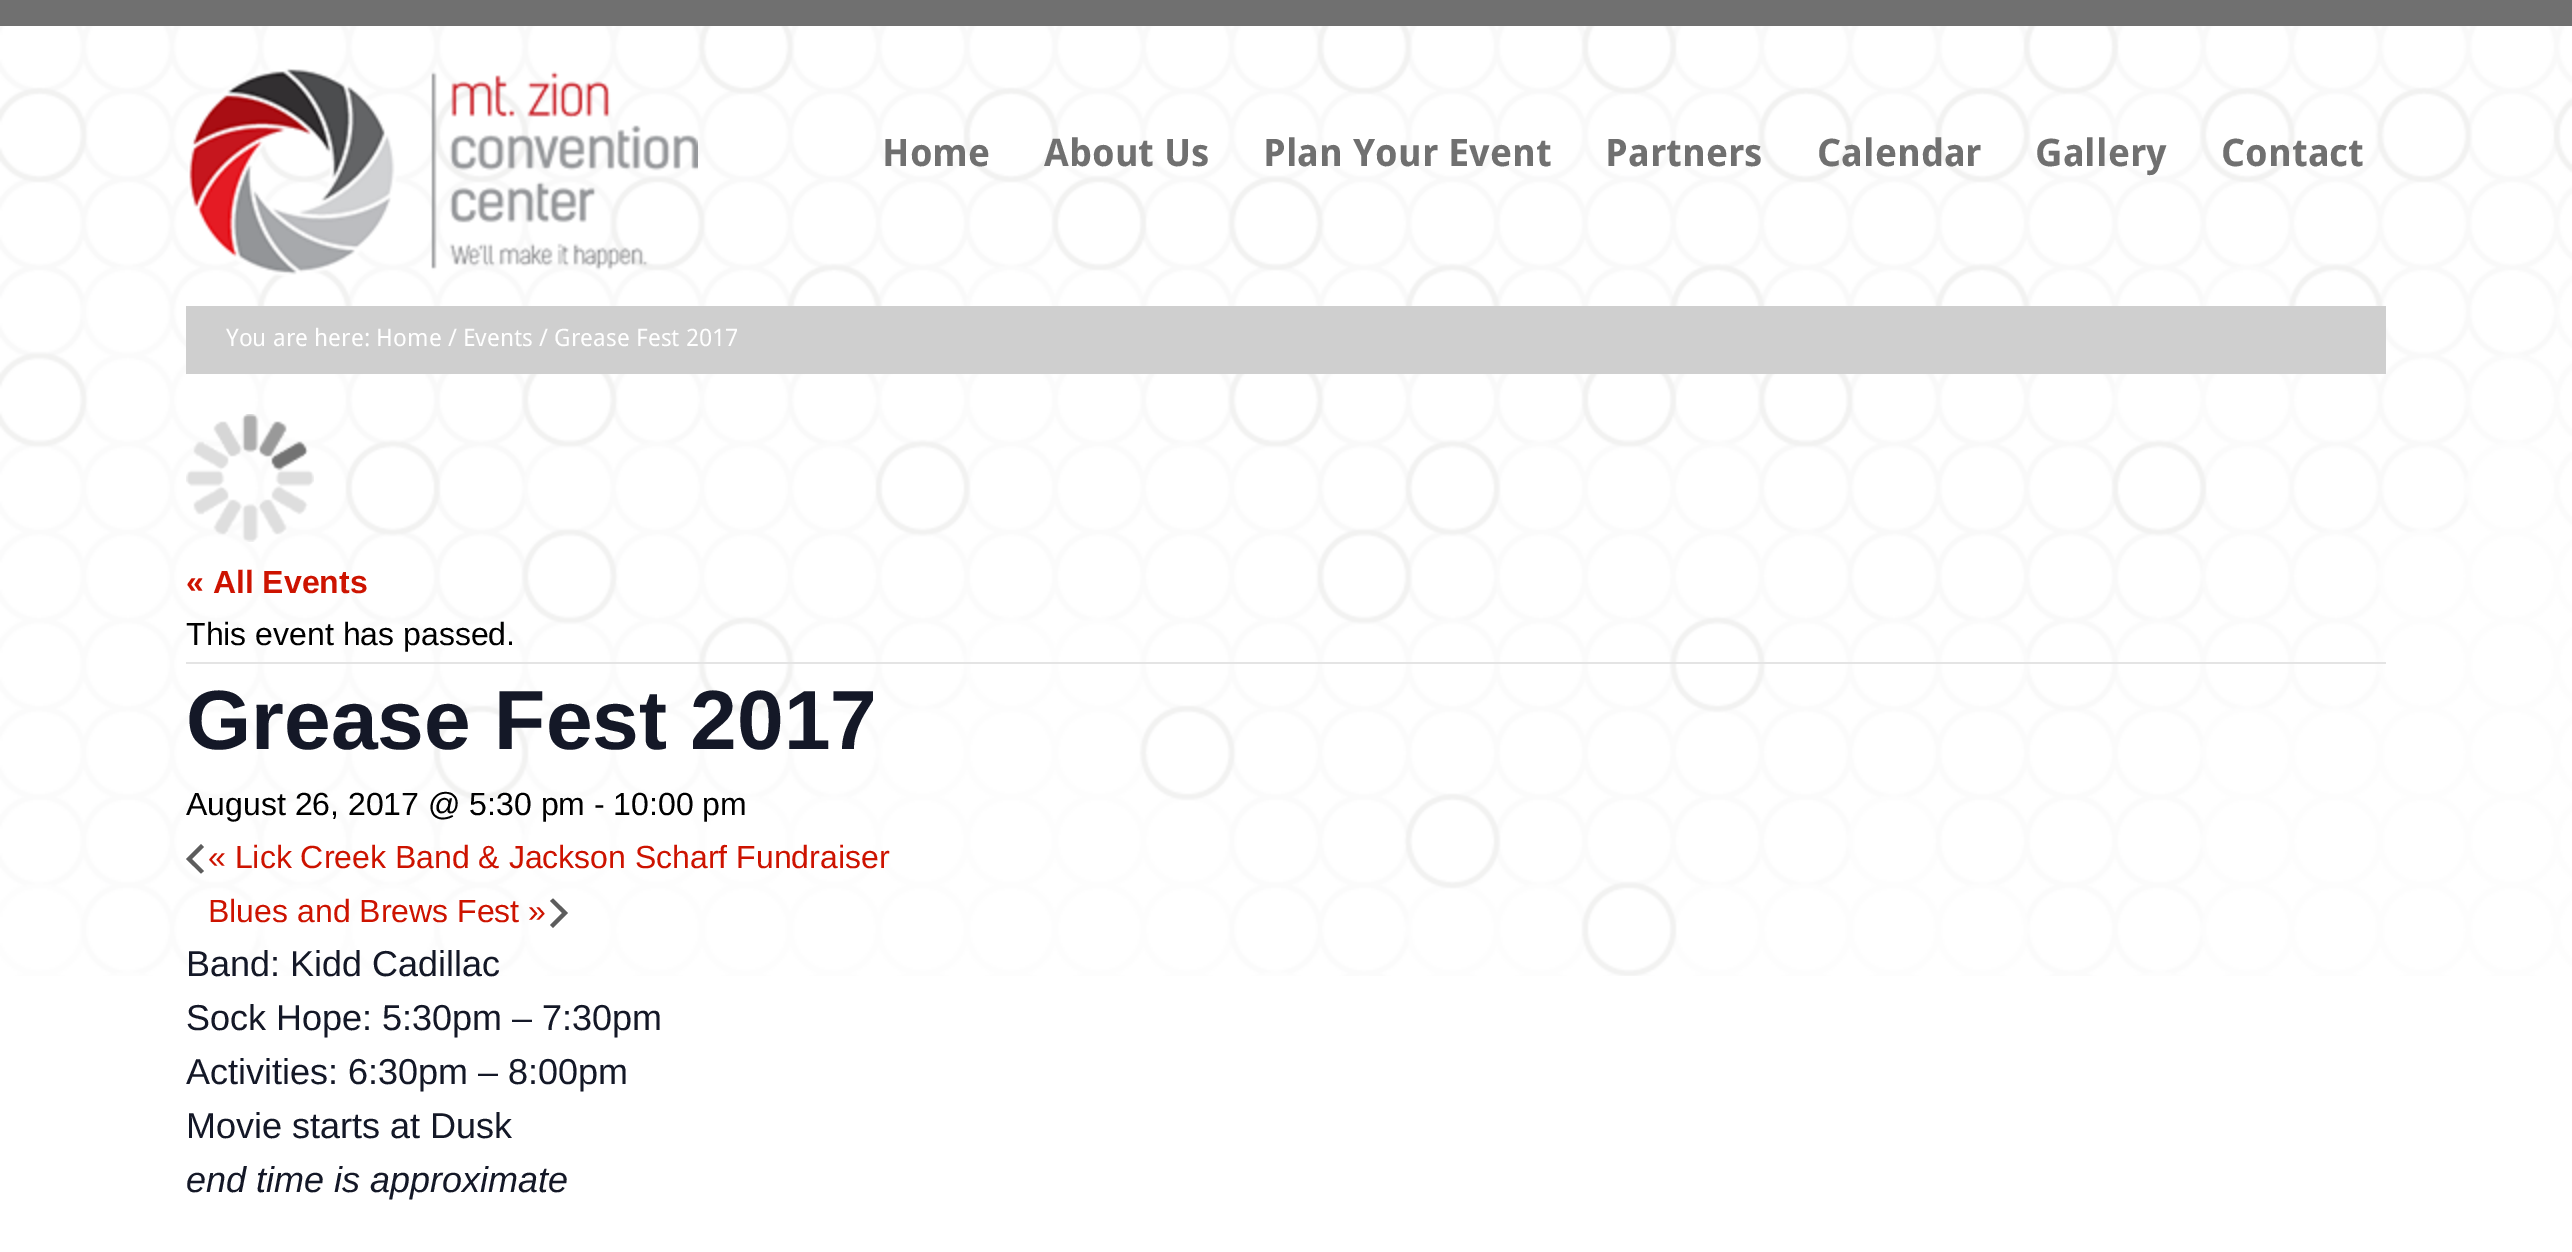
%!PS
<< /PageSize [2572 1252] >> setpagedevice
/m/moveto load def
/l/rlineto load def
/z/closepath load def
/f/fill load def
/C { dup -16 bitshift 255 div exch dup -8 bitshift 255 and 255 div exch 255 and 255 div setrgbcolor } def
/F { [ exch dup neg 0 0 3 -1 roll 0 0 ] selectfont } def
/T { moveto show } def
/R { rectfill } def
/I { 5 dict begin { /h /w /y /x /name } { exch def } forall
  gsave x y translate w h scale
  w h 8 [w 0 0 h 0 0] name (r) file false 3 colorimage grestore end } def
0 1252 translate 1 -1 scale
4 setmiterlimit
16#FFFFFF C
0 0 2572 1252 R
(1.rgb) 0 26 2572 950 I
16#707070 C
0 0 2572 26 R
(2.rgb) 188 68 510 208 I
/DroidSans-Bold 38 F
(Home) 882 166 T
(About Us) 1044 166 T
(Plan Your Event) 1263 166 T
(Partners) 1605 166 T
(Calendar) 1817 166 T
(Gallery) 2035 166 T
(Contact) 2221 166 T
16#CFCFCF C
186 306 2200 68 R
/DroidSans-Regular 24 F
16#FFFFFF C
(You are here: Home / Events / Grease Fest 2017) 226 346 T
(3.rgb) 186 414 128 128 I
/LiberationSans-Bold 32 F
16#CD1300 C
(« All Events) 186 593 T
16#E4E4E4 C
186 662 2200 2 R
/LiberationSans-Regular 32 F
16#000000 C
(This event has passed.) 186 645 T
/LiberationSans-Bold 84 F
16#141827 C
(Grease Fest 2017) 186 749 T
/LiberationSans-Regular 32 F
16#000000 C
(August 26, 2017 @ 5:30 pm - 10:00 pm) 186 815 T
16#5D5D5D C
204 871 m -3 2.5 l -15 -14.5 l 15 -15 l 3 3 l -12 12 l z f
16#CD1300 C
(« Lick Creek Band & Jackson Scharf Fundraiser) 208 868 T
(Blues and Brews Fest ») 208 922 T
16#5D5D5D C
550 901 m 3 -2.5 l 15 14.5 l -15 15 l -3 -3 l 12 -12 l z f
/LiberationSans-Regular 36 F
16#141827 C
(Band: Kidd Cadillac) 186 976 T
(Sock Hope: 5:30pm – 7:30pm) 186 1030 T
(Activities: 6:30pm – 8:00pm) 186 1084 T
(Movie starts at Dusk) 186 1138 T
/LiberationSans-Italic 36 F
(end time is approximate) 186 1192 T
showpage
